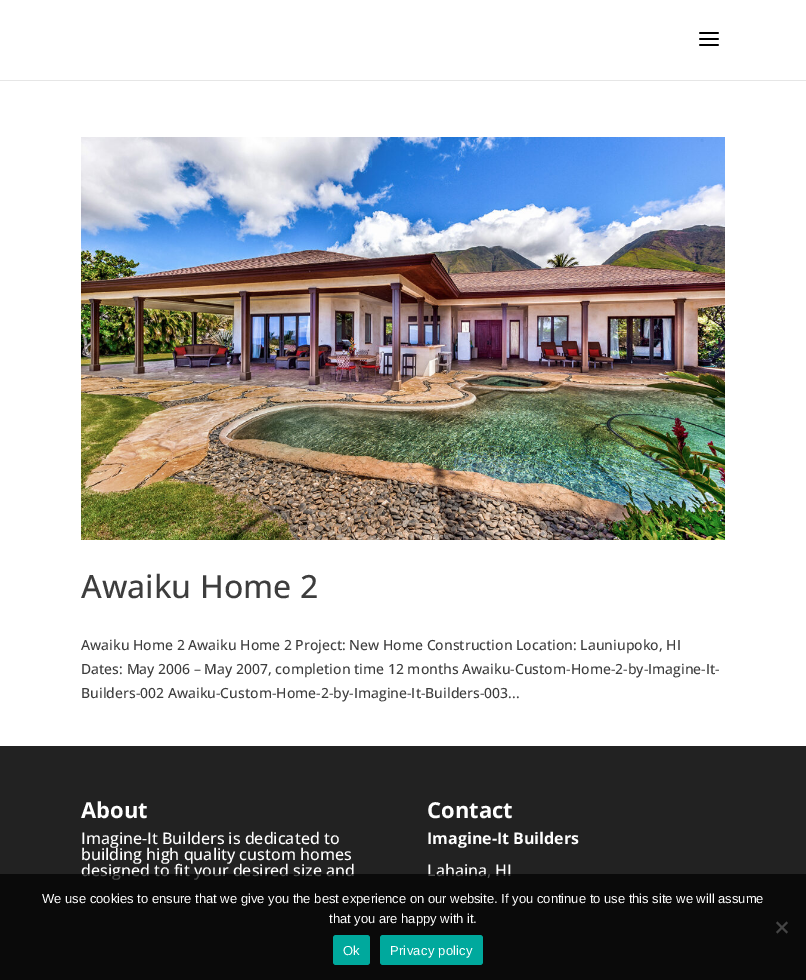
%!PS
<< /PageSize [806 980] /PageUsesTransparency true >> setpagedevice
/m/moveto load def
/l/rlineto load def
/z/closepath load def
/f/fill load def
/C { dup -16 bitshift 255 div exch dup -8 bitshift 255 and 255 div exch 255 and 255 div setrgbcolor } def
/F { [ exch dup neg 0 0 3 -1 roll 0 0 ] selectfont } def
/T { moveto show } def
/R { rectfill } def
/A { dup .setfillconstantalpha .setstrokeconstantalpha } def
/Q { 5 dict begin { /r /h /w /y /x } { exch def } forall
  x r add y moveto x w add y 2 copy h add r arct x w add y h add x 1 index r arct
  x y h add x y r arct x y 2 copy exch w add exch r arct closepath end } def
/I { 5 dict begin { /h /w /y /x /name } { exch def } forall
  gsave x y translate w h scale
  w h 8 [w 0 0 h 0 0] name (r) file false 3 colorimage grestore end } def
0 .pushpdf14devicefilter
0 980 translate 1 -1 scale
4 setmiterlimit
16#FFFFFF C
0 0 806 980 R
16#E6E6E6 C
0 80 806 1 R
(1.rgb) 699 32 20 14 I
(2.rgb) 81 137 644 403 I
/OpenSans-Medium 32 F
16#3D3D3D C
(Awaiku Home 2) 81 598 T
/OpenSans-Medium 14 F
(Awaiku Home 2 Awaiku Home 2 Project: New Home Construction Location: Launiupoko, HI) 81 650 T
(Dates: May 2006 – May 2007, completion time 12 months Awaiku-Custom-Home-2-by-Imagine-It-) 81 674 T
(Builders-002 Awaiku-Custom-Home-2-by-Imagine-It-Builders-003...) 81 698 T
16#222222 C
0 746 806 234 R
/OpenSans-Bold 22 F
16#FFFFFF C
(About) 81 818 T
/OpenSans-Medium 16 F
(Imagine-It Builders is dedicated to) 81 844 T
(building high quality custom homes) 81 860 T
(designed to fit your desired size and) 81 876 T
/OpenSans-Bold 22 F
(Contact) 427 818 T
/OpenSans-Bold 16 F
(Imagine-It Builders) 427 844 T
/OpenSans-Medium 16 F
(Lahaina, HI) 427 876 T
0.7 A
16#000000 C
0 874 806 106 R
/LiberationSans-Regular 13 F
1 A
16#FFFFFF C
(We use cookies to ensure that we give you the best experience on our website. If you continue to use this site we will assume) 42 903 T
(that you are happy with it.) 329 923 T
16#454545 C
786.5 921.5 m 1.5 1.5 l -10.5 10.5 l -1.5 -1.5 l z f
776 923 m 1.5 -1.5 l 10.5 10.5 l -1.5 1.5 l z f
16#00A99D C
333 935 37 30 3 Q f
16#FFFFFF C
343 955 m .25 0 (Ok) ashow
16#00A99D C
380 935 103 30 3 Q f
16#FFFFFF C
390 955 m .25 0 (Privacy policy) ashow
.poppdf14devicefilter showpage
